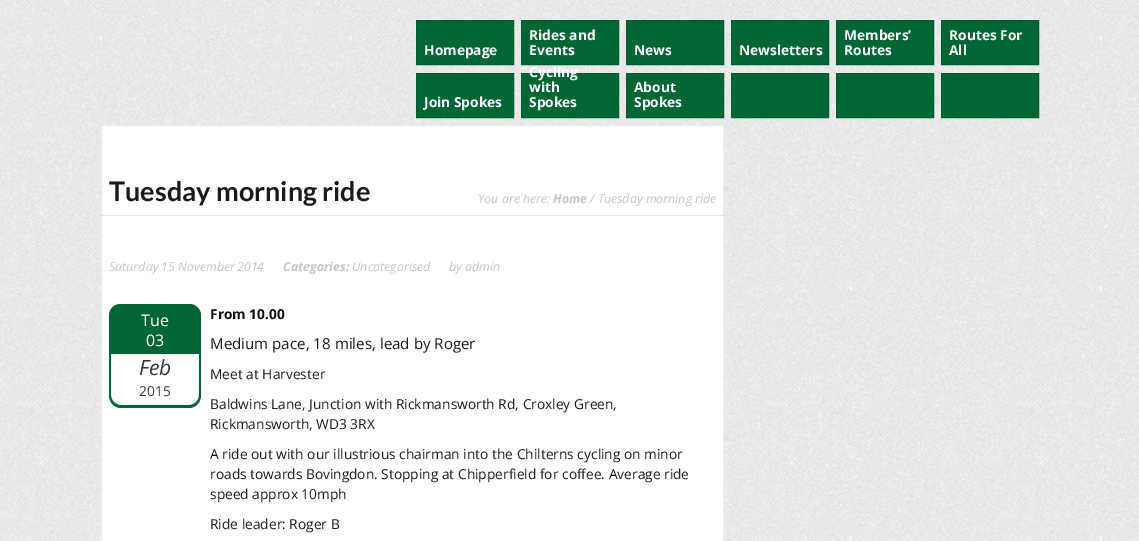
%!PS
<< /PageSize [1139 541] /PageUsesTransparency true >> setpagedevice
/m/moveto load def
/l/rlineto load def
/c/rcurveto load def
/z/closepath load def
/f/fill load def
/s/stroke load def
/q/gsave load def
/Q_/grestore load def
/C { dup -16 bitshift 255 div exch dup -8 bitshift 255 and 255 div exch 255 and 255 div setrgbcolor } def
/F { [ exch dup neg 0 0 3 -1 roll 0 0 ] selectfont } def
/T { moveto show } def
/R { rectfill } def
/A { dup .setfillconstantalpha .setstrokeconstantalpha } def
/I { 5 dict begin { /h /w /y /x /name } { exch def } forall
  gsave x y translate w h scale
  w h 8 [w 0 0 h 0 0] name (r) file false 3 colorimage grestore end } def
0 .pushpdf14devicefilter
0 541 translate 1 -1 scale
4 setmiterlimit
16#FFFFFF C
0 0 1139 541 R
(1.rgb) 0 0 1139 541 I
16#006633 C
416.5 20.5 m 97 0 l 0 44 l -97 0 l z q f Q_
16#005F2F C
s
/OpenSans-Bold 13.75 F
16#FFFFFF C
(Homepage) 424 55 T
16#006633 C
521.5 20.5 m 97 0 l 0 44 l -97 0 l z q f Q_
16#005F2F C
s
16#FFFFFF C
(Rides and) 529 40 T
(Events) 529 55 T
16#006633 C
626.5 20.5 m 97 0 l 0 44 l -97 0 l z q f Q_
16#005F2F C
s
16#FFFFFF C
(News) 634 55 T
16#006633 C
731.5 20.5 m 97 0 l 0 44 l -97 0 l z q f Q_
16#005F2F C
s
16#FFFFFF C
(Newsletters) 739 55 T
16#006633 C
836.5 20.5 m 97 0 l 0 44 l -97 0 l z q f Q_
16#005F2F C
s
16#FFFFFF C
(Members’) 844 40 T
(Routes) 844 55 T
16#006633 C
941.5 20.5 m 97 0 l 0 44 l -97 0 l z q f Q_
16#005F2F C
s
16#FFFFFF C
(Routes For) 949 40 T
(All) 949 55 T
16#006633 C
416.5 73.5 m 97 0 l 0 44 l -97 0 l z q f Q_
16#005F2F C
s
16#FFFFFF C
(Join Spokes) 424 107 T
16#006633 C
521.5 73.5 m 97 0 l 0 44 l -97 0 l z q f Q_
16#005F2F C
s
16#FFFFFF C
(Cycling) 529 77 T
(with) 529 92 T
(Spokes) 529 107 T
16#006633 C
626.5 73.5 m 97 0 l 0 44 l -97 0 l z q f Q_
16#005F2F C
s
16#FFFFFF C
(About) 634 92 T
(Spokes) 634 107 T
16#006633 C
731.5 73.5 m 97 0 l 0 44 l -97 0 l z q f Q_
16#005F2F C
s
16#006633 C
836.5 73.5 m 97 0 l 0 44 l -97 0 l z q f Q_
16#005F2F C
s
16#006633 C
941.5 73.5 m 97 0 l 0 44 l -97 0 l z q f Q_
16#005F2F C
s
16#FFFFFF C
101.5 125.5 m 622 0 l 0 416 l -622 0 l z q f Q_
16#EDEDED C
s
/Lato-Bold 27 F
16#1A1A1A C
(Tuesday morning ride) 109 201 T
/OpenSans-Italic 12.4 F
16#C5C5C5 C
(You are here:) 478 203 T
/OpenSans-BoldItalic 12.4 F
(Home) 553 203 T
/OpenSans-Italic 12.4 F
(/ Tuesday morning ride) 590 203 T
0.1 A
16#000000 C
101 215 623 1 R
1 A
16#C5C5C5 C
(Saturday 15 November) 109 271 T
(2014) 237 271 T
/OpenSans-BoldItalic 12.4 F
(Categories:) 283 271 T
/OpenSans-Italic 12.4 F
(Uncategorised) 352 271 T
(by admin) 449 271 T
16#006633 C
122 304 m 66 0 l 7 0 13 6 13 13 c 0 37 l -92 0 l 0 -37 l 0 -7 6 -13 13 -13 c z f
121 304 m 68 0 l 7 0 12 5 12 12 c 0 38 l -92 0 l 0 -38 l 0 -7 5 -12 12 -12 c z 121 306 m 68 0 l 5 0 10 5 10 10 c 0 38 l -88 0 l 0 -38 l 0 -5 5 -10 10 -10 c z eofill
/OpenSans-Regular 16 F
16#FFFFFF C
(Tue) 141 326 T
(03) 146 346 T
16#006633 C
109 354 m 92 0 l 0 41 l 0 7 -5 13 -12 13 c -68 0 l -7 0 -12 -6 -12 -13 c z 111 354 m 88 0 l 0 41 l 0 6 -5 10 -10 10 c -68 0 l -5 0 -10 -4 -10 -10 c z eofill
/OpenSans-Italic 21 F
16#343838 C
(Feb) 139 375 T
/OpenSans-Regular 13.75 F
(2015) 139 396 T
/OpenSans-Bold 13.75 F
16#0F0F0F C
(From 10.00) 210 319 T
/OpenSans-Regular 15.1 F
16#1A1A1A C
(Medium pace, 18 miles, lead by Roger) 210 349 T
/OpenSans-Regular 13.75 F
(Meet at Harvester) 210 379 T
(Baldwins Lane, Junction with Rickmansworth Rd, Croxley Green,) 210 409 T
(Rickmansworth, WD3 3RX) 210 429 T
(A ride out with our illustrious chairman into the Chilterns cycling on minor) 210 459 T
(roads towards Bovingdon. Stopping at Chipperfield for coffee. Average ride) 210 479 T
(speed approx 10mph) 210 499 T
(Ride leader: Roger B) 210 529 T
.poppdf14devicefilter showpage
